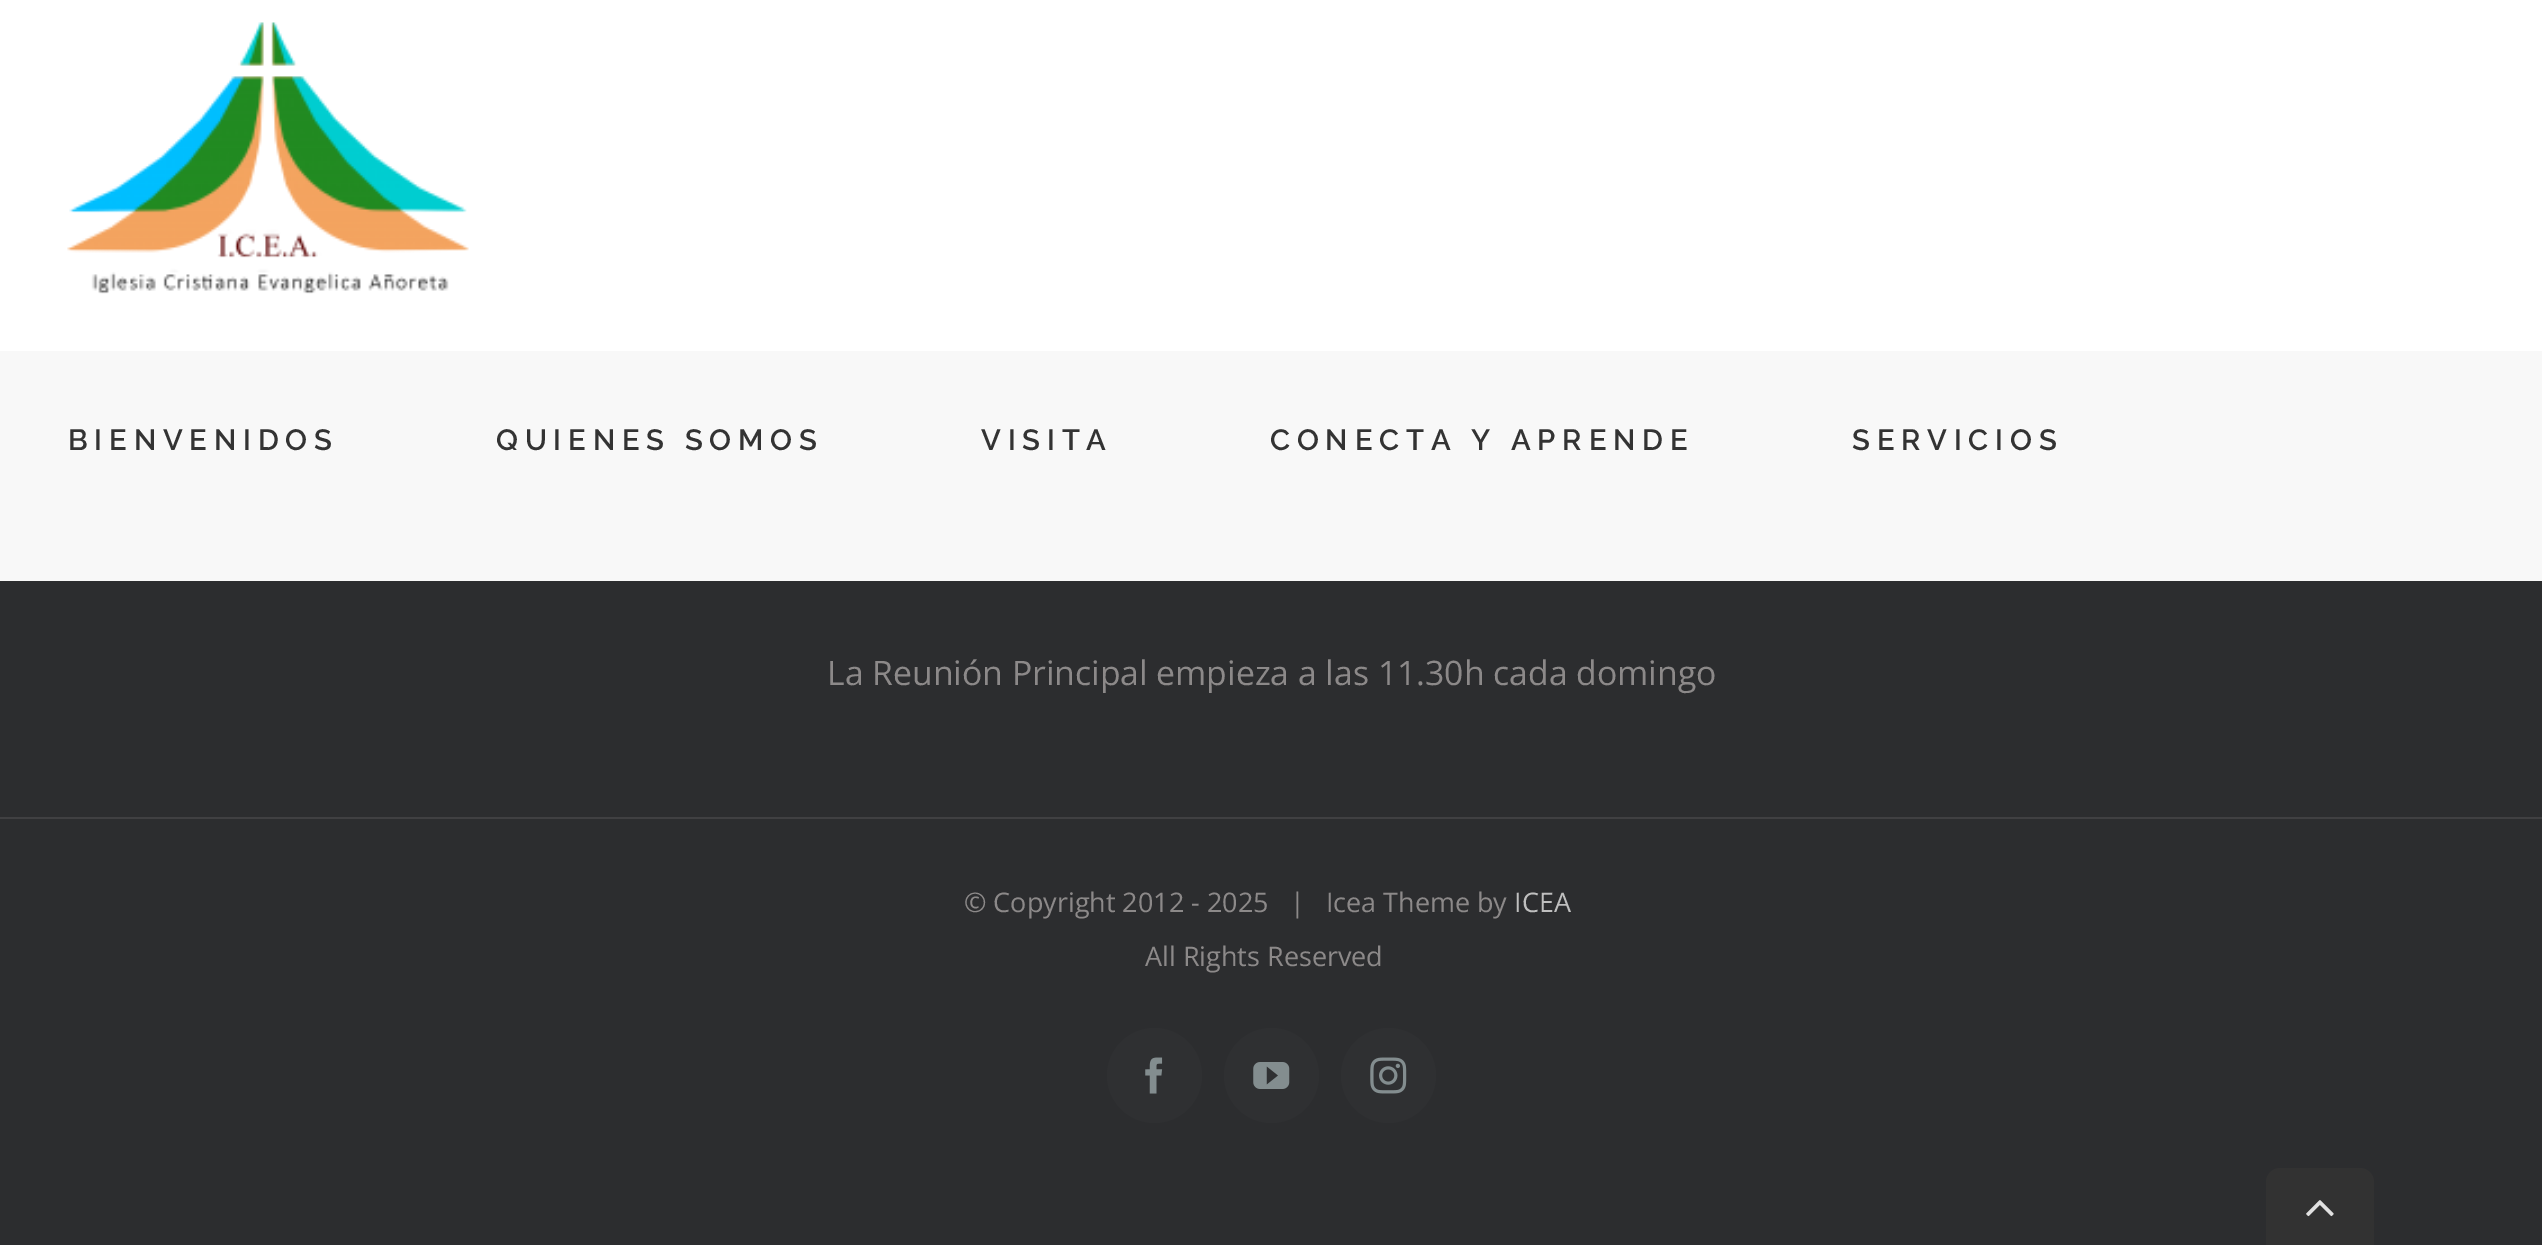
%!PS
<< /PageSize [2542 1245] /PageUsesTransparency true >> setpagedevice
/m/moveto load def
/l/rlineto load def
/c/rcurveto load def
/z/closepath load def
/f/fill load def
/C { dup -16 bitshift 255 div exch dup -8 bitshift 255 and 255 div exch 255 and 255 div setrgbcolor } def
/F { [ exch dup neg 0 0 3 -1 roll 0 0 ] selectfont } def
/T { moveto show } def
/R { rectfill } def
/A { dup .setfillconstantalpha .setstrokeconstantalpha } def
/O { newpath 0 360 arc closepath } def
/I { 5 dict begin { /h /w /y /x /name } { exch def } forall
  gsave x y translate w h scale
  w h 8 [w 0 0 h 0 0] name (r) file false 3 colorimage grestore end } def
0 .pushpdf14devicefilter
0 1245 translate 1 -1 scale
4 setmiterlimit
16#FFFFFF C
0 0 2542 1245 R
16#2C2D2F C
0 351 2542 466 R
0.97 A
16#FFFFFF C
0 351 2542 230 R
1 A
(1.rgb) 67 22 402 272 I
/Raleway-SemiBold 29.25 F
16#333333 C
68 450 m 6.75 0 (BIENVENIDOS) ashow
496 450 m 6.75 0 (QUIENES SOMOS) ashow
981 450 m 6.75 0 (VISITA) ashow
1270 450 m 6.75 0 (CONECTA Y APRENDE) ashow
1852 450 m 6.75 0 (SERVICIOS) ashow
/OpenSans-Regular 33.75 F
16#8C8989 C
(La Reunión Principal empieza a las 11.30h cada domingo) 827 685 T
16#2C2D2F C
0 819 2542 426 R
16#404042 C
0 817 2542 2 R
/OpenSans-Regular 27 F
16#8C8989 C
(© Copyright 2012 - 2025   |   Icea Theme by) 964 912 T
16#BFBFBF C
(ICEA) 1514 912 T
16#8C8989 C
(All Rights Reserved) 1145 966 T
16#2F3032 C
1154.5 1075.5 47.5 O f
(2.rgb) 1145 1057 18 37 I
1271.5 1075.5 47.5 O f
(3.rgb) 1253 1062 37 27 I
1388.5 1075.5 47.5 O f
(4.rgb) 1370 1057 37 37 I
16#323232 C
2280 1168 m 80 0 l 7.5 0 14 6.5 14 14 c 0 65 l -108 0 l 0 -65 l 0 -7.5 6.5 -14 14 -14 c z f
(5.rgb) 2306 1200 28 17 I
.poppdf14devicefilter showpage
